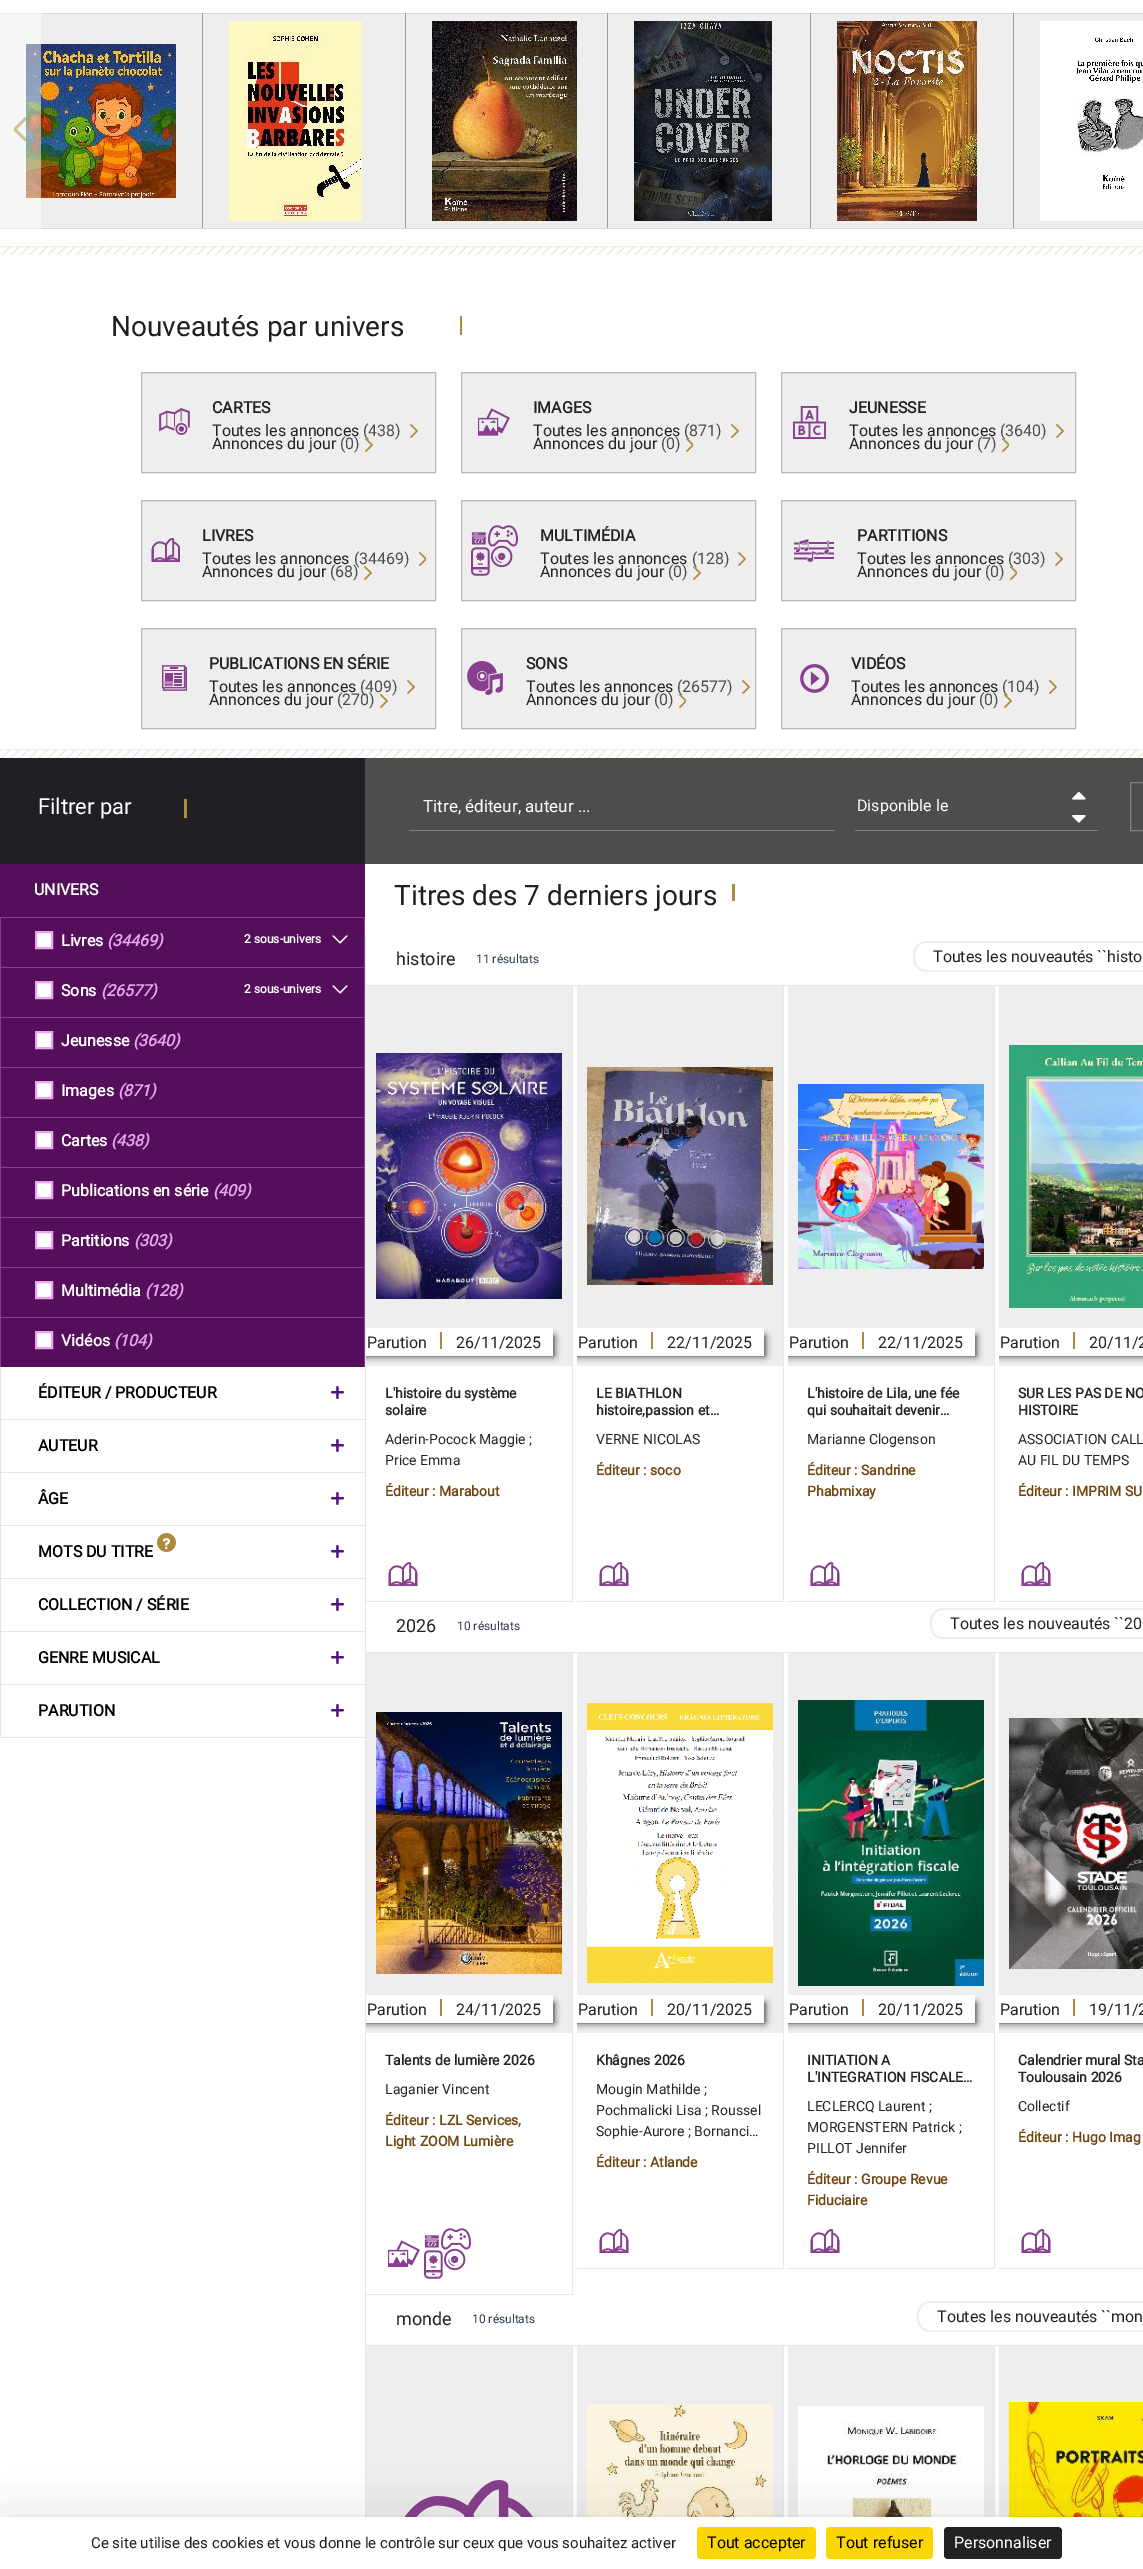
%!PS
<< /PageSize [1143 2569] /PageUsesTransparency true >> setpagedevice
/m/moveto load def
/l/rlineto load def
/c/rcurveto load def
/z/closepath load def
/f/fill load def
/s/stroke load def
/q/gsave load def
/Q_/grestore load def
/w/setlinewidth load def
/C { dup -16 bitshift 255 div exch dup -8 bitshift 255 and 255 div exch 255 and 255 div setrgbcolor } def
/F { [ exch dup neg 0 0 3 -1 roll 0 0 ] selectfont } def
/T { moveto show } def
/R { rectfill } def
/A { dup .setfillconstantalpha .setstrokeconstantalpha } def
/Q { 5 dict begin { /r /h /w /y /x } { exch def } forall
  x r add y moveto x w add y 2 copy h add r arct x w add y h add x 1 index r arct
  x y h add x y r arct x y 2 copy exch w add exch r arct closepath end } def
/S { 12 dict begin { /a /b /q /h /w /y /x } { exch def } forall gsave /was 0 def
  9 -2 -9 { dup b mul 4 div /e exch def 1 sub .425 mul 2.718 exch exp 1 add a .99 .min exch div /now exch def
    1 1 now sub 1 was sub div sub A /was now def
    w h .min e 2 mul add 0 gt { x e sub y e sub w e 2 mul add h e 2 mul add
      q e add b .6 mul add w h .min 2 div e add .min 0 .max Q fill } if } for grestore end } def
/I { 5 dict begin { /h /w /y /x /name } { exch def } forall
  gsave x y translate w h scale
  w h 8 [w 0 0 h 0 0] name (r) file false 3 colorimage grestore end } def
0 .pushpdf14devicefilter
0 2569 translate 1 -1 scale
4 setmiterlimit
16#FFFFFF C
0 0 1143 2569 R
16#EEEEEE C
0 14 202 214 R
16#DAD7D7 C
0 13 1143 1 R
16#A09B9B C
202 13 1 216 R
16#DAD7D7 C
0 228 203 1 R
(1.rgb) 26 44 150 154 I
16#EEEEEE C
203 14 202 214 R
16#A09B9B C
405 13 1 216 R
16#DAD7D7 C
203 228 203 1 R
(2.rgb) 229 21 133 200 I
16#EEEEEE C
406 14 201 214 R
16#A09B9B C
607 13 1 216 R
16#DAD7D7 C
406 228 202 1 R
(3.rgb) 432 21 145 200 I
16#EEEEEE C
608 14 202 214 R
16#A09B9B C
810 13 1 216 R
16#DAD7D7 C
608 228 203 1 R
(4.rgb) 634 21 138 200 I
16#EEEEEE C
811 14 202 214 R
16#A09B9B C
1013 13 1 216 R
16#DAD7D7 C
811 228 332 1 R
(5.rgb) 837 21 140 200 I
16#EEEEEE C
1014 14 129 214 R
(6.rgb) 1040 21 103 200 I
0.5 A
16#FFFFFF C
0 13 41 216 R
1 A
(7.rgb) 14 117 13 24 I
(8.rgb) 0 246 1143 9 I
/Roboto-Regular 28 F
16#1F1F24 C
(Nouveautés par univers) 111 336 T
16#AE8A3E C
460 316 2 19 R
16#EEEEEE C
141.5 372.5 m 294 0 l 0 100 l -294 0 l z q f Q_
16#B6B9BF C
s
(9.rgb) 159 408 31 27 I
/Roboto-Bold 16 F
16#212529 C
(CARTES) 212 413 T
/Roboto-Regular 16 F
(Toutes les annonces) 212 436 T
16#4D4D4D C
(\(438\)) 363 436 T
(10.rgb) 410 424 8 14 I
16#212529 C
(Annonces du jour) 212 449 T
16#4D4D4D C
(\(0\)) 340 449 T
(11.rgb) 365 438 8 14 I
16#EEEEEE C
141.5 500.5 m 294 0 l 0 100 l -294 0 l z q f Q_
16#B6B9BF C
s
(12.rgb) 151 538 29 24 I
/Roboto-Bold 16 F
16#212529 C
(LIVRES) 202 541 T
/Roboto-Regular 16 F
(Toutes les annonces) 202 564 T
16#4D4D4D C
(\(34469\)) 354 564 T
(13.rgb) 419 552 7 14 I
16#212529 C
(Annonces du jour) 202 577 T
16#4D4D4D C
(\(68\)) 330 577 T
(10.rgb) 364 566 8 14 I
16#EEEEEE C
141.5 628.5 m 294 0 l 0 100 l -294 0 l z q f Q_
16#B6B9BF C
s
(14.rgb) 162 665 25 26 I
/Roboto-Bold 16 F
16#212529 C
(PUBLICATIONS EN SÉRIE) 209 669 T
/Roboto-Regular 16 F
(Toutes les annonces) 209 692 T
16#4D4D4D C
(\(409\)) 360 692 T
(10.rgb) 407 680 8 14 I
16#212529 C
(Annonces du jour) 209 705 T
16#4D4D4D C
(\(270\)) 337 705 T
(10.rgb) 380 694 8 14 I
16#EEEEEE C
461.5 372.5 m 294 0 l 0 100 l -294 0 l z q f Q_
16#B6B9BF C
s
(15.rgb) 478 408 32 28 I
/Roboto-Bold 16 F
16#212529 C
(IMAGES) 533 413 T
/Roboto-Regular 16 F
(Toutes les annonces) 533 436 T
16#4D4D4D C
(\(871\)) 684 436 T
(10.rgb) 731 424 8 14 I
16#212529 C
(Annonces du jour) 533 449 T
16#4D4D4D C
(\(0\)) 661 449 T
(16.rgb) 686 438 7 14 I
16#EEEEEE C
461.5 500.5 m 294 0 l 0 100 l -294 0 l z q f Q_
16#B6B9BF C
s
(17.rgb) 471 525 47 51 I
/Roboto-Bold 16 F
16#212529 C
(MULTIMÉDIA) 540 541 T
/Roboto-Regular 16 F
(Toutes les annonces) 540 564 T
16#4D4D4D C
(\(128\)) 692 564 T
(10.rgb) 738 552 8 14 I
16#212529 C
(Annonces du jour) 540 577 T
16#4D4D4D C
(\(0\)) 668 577 T
(18.rgb) 693 566 8 14 I
16#EEEEEE C
461.5 628.5 m 294 0 l 0 100 l -294 0 l z q f Q_
16#B6B9BF C
s
(19.rgb) 467 661 36 34 I
/Roboto-Bold 16 F
16#212529 C
(SONS) 526 669 T
/Roboto-Regular 16 F
(Toutes les annonces) 526 692 T
16#4D4D4D C
(\(26577\)) 677 692 T
(10.rgb) 742 680 8 14 I
16#212529 C
(Annonces du jour) 526 705 T
16#4D4D4D C
(\(0\)) 654 705 T
(20.rgb) 679 694 7 14 I
16#EEEEEE C
781.5 372.5 m 294 0 l 0 100 l -294 0 l z q f Q_
16#B6B9BF C
s
(21.rgb) 793 406 33 33 I
/Roboto-Bold 16 F
16#212529 C
(JEUNESSE) 849 413 T
/Roboto-Regular 16 F
(Toutes les annonces) 849 436 T
16#4D4D4D C
(\(3640\)) 1000 436 T
(10.rgb) 1056 424 8 14 I
16#212529 C
(Annonces du jour) 849 449 T
16#4D4D4D C
(\(7\)) 977 449 T
(22.rgb) 1002 438 7 14 I
16#EEEEEE C
781.5 500.5 m 294 0 l 0 100 l -294 0 l z q f Q_
16#B6B9BF C
s
(23.rgb) 794 539 40 23 I
/Roboto-Bold 16 F
16#212529 C
(PARTITIONS) 857 541 T
/Roboto-Regular 16 F
(Toutes les annonces) 857 564 T
16#4D4D4D C
(\(303\)) 1008 564 T
(10.rgb) 1055 552 8 14 I
16#212529 C
(Annonces du jour) 857 577 T
16#4D4D4D C
(\(0\)) 985 577 T
(24.rgb) 1010 566 7 14 I
16#EEEEEE C
781.5 628.5 m 294 0 l 0 100 l -294 0 l z q f Q_
16#B6B9BF C
s
(25.rgb) 800 664 29 29 I
/Roboto-Bold 16 F
16#212529 C
(VIDÉOS) 851 669 T
/Roboto-Regular 16 F
(Toutes les annonces) 851 692 T
16#4D4D4D C
(\(104\)) 1002 692 T
(10.rgb) 1049 680 8 14 I
16#212529 C
(Annonces du jour) 851 705 T
16#4D4D4D C
(\(0\)) 979 705 T
(26.rgb) 1004 694 8 14 I
(8.rgb) 0 749 1143 9 I
16#1F1F24 C
0 758 365 106 R
/Roboto-Regular 22 F
16#FFFFFF C
(Filtrer par) 38 814 T
16#AE8A3E C
184 799 3 19 R
16#540E5A C
0 864 365 503 R
/Roboto-Bold 16 F
16#FFFFFF C
(UNIVERS) 34 895 T
16#88408E C
0 917 365 1 R
364 917 1 50 R
0 917 1 50 R
16#FFFFFF C
36 932 m 16 0 l 0 16 l -16 0 l z q f Q_
16#EBA4F1 C
2 w
s
/Roboto-BoldItalic 16 F
(\(34469\)) 107 946 T
/Roboto-Bold 16 F
16#FFFFFF C
(Livres) 61 946 T
/Roboto-Bold 12 F
(2 sous-univers) 244 943 T
(27.rgb) 332 935 16 9 I
16#88408E C
0 967 365 1 R
364 967 1 50 R
0 967 1 50 R
16#FFFFFF C
36 982 m 16 0 l 0 16 l -16 0 l z q f Q_
16#EBA4F1 C
s
/Roboto-BoldItalic 16 F
(\(26577\)) 101 996 T
/Roboto-Bold 16 F
16#FFFFFF C
(Sons) 61 996 T
/Roboto-Bold 12 F
(2 sous-univers) 244 993 T
(27.rgb) 332 985 16 9 I
16#88408E C
0 1017 365 1 R
364 1017 1 50 R
0 1017 1 50 R
/Roboto-Bold 16 F
16#FFFFFF C
(Jeunesse) 61 1046 T
36 1032 m 16 0 l 0 16 l -16 0 l z q f Q_
16#EBA4F1 C
s
/Roboto-BoldItalic 16 F
(\(3640\)) 133 1046 T
16#88408E C
0 1067 365 1 R
364 1067 1 50 R
0 1067 1 50 R
/Roboto-Bold 16 F
16#FFFFFF C
(Images) 61 1096 T
36 1082 m 16 0 l 0 16 l -16 0 l z q f Q_
16#EBA4F1 C
s
/Roboto-BoldItalic 16 F
(\(871\)) 118 1096 T
16#88408E C
0 1117 365 1 R
364 1117 1 50 R
0 1117 1 50 R
/Roboto-Bold 16 F
16#FFFFFF C
(Cartes) 61 1146 T
36 1132 m 16 0 l 0 16 l -16 0 l z q f Q_
16#EBA4F1 C
s
/Roboto-BoldItalic 16 F
(\(438\)) 111 1146 T
16#88408E C
0 1167 365 1 R
364 1167 1 50 R
0 1167 1 50 R
/Roboto-Bold 16 F
16#FFFFFF C
(Publications en série) 61 1196 T
36 1182 m 16 0 l 0 16 l -16 0 l z q f Q_
16#EBA4F1 C
s
/Roboto-BoldItalic 16 F
(\(409\)) 213 1196 T
16#88408E C
0 1217 365 1 R
364 1217 1 50 R
0 1217 1 50 R
/Roboto-Bold 16 F
16#FFFFFF C
(Partitions) 61 1246 T
36 1232 m 16 0 l 0 16 l -16 0 l z q f Q_
16#EBA4F1 C
s
/Roboto-BoldItalic 16 F
(\(303\)) 134 1246 T
16#88408E C
0 1267 365 1 R
364 1267 1 50 R
0 1267 1 50 R
/Roboto-Bold 16 F
16#FFFFFF C
(Multimédia) 61 1296 T
36 1282 m 16 0 l 0 16 l -16 0 l z q f Q_
16#EBA4F1 C
s
/Roboto-BoldItalic 16 F
(\(128\)) 145 1296 T
16#88408E C
0 1317 365 1 R
364 1317 1 50 R
0 1317 1 50 R
/Roboto-Bold 16 F
16#FFFFFF C
(Vidéos) 61 1346 T
36 1332 m 16 0 l 0 16 l -16 0 l z q f Q_
16#EBA4F1 C
s
/Roboto-BoldItalic 16 F
(\(104\)) 114 1346 T
16#E0E7EC C
0 1419 365 1 R
0 1367 1 53 R
/Roboto-Bold 16 F
16#000000 C
(ÉDITEUR / PRODUCTEUR) 38 1398 T
(28.rgb) 331 1386 13 13 I
16#E0E7EC C
0 1472 365 1 R
0 1420 1 53 R
16#000000 C
(AUTEUR) 38 1451 T
(28.rgb) 331 1439 13 13 I
16#E0E7EC C
0 1525 365 1 R
0 1473 1 53 R
16#000000 C
(ÂGE) 38 1504 T
(28.rgb) 331 1492 13 13 I
16#E0E7EC C
0 1578 365 1 R
0 1526 1 53 R
16#000000 C
(MOTS DU TITRE) 38 1557 T
(29.rgb) 157 1533 19 19 I
(28.rgb) 331 1545 13 13 I
16#E0E7EC C
0 1631 365 1 R
0 1579 1 53 R
16#000000 C
(COLLECTION / SÉRIE) 38 1610 T
(28.rgb) 331 1598 13 13 I
16#E0E7EC C
0 1684 365 1 R
0 1632 1 53 R
16#000000 C
(GENRE MUSICAL) 38 1663 T
(28.rgb) 331 1651 13 13 I
16#E0E7EC C
0 1737 365 1 R
0 1685 1 53 R
16#000000 C
(PARUTION) 38 1716 T
(28.rgb) 331 1704 13 13 I
16#4D4D4D C
365 758 778 106 R
16#808080 C
409 830 426 1 R
/Roboto-Regular 17 F
16#FFFFFF C
(Titre, éditeur, auteur ...) 423 812 T
16#808080 C
855 830 243 1 R
/Roboto-Regular 16 F
16#FFFFFF C
(Disponible le) 857 811 T
(30.rgb) 1072 791 14 9 I
(31.rgb) 1072 815 14 8 I
16#808080 C
1 w
1130.5 782.5 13 48 rectstroke
/Roboto-Regular 28 F
16#1F1F24 C
(Titres des 7 derniers jours) 394 905 T
16#AE8A3E C
732 884 3 17 R
16#E3E9EE C
365 935 1 50 R
/Roboto-Regular 18 F
16#212529 C
(histoire) 396 965 T
/Roboto-Regular 12 F
16#2B394F C
(11 résultats) 476 963 T
16#EEEEEE C
926 941 m 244 0 l 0 31 l -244 0 l -7 0 -13 -6 -13 -13 c 0 -5 l 0 -7 6 -13 13 -13 c z 926 943 m 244 0 l 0 27 l -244 0 l -2 0 -4 -1 -6 -2 c -9 -6 -6 -25 6 -25 c z eofill
/Roboto-Regular 16 F
16#212529 C
(Toutes les nouveautés ``histo) 933 962 T
16#E3E9EE C
365 985 778 1 R
365 985 1 667 R
572 986 1 616 R
366 1601 207 1 R
16#EEEEEE C
366 986 206 380 R
(32.rgb) 376 1053 186 246 I
16#FFFFFF C
366 1328 187 28 R
q
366 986 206 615 rectclip
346 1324 m 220 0 l 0 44 l -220 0 l z 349 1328 m 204 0 l 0 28 l -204 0 l z eoclip newpath
16#212529 C
358 1336 196 20 0 3.5 1 S
Q_
16#212529 C
(Parution) 367 1348 T
16#AE8A3E C
440 1332 2 17 R
16#212529 C
(26/11/2025) 456 1348 T
/Roboto-Bold 14 F
(L'histoire du système) 385 1398 T
(solaire) 385 1415 T
/Roboto-Regular 14 F
(Aderin-Pocock Maggie ;) 385 1444 T
(Price Emma) 385 1465 T
/Roboto-Bold 14 F
16#714610 C
(Éditeur : Marabout) 385 1496 T
(33.rgb) 388 1562 30 24 I
16#E3E9EE C
783 986 1 616 R
577 1601 207 1 R
16#EEEEEE C
577 986 206 380 R
(34.rgb) 587 1067 186 218 I
16#FFFFFF C
577 1328 187 28 R
q
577 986 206 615 rectclip
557 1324 m 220 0 l 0 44 l -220 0 l z 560 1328 m 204 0 l 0 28 l -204 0 l z eoclip newpath
16#212529 C
569 1336 196 20 0 3.5 1 S
Q_
/Roboto-Regular 16 F
16#212529 C
(Parution) 578 1348 T
16#AE8A3E C
651 1332 2 17 R
16#212529 C
(22/11/2025) 667 1348 T
/Roboto-Bold 14 F
(LE BIATHLON) 596 1398 T
(histoire,passion et…) 596 1415 T
/Roboto-Regular 14 F
(VERNE NICOLAS) 596 1444 T
/Roboto-Bold 14 F
16#714610 C
(Éditeur : soco) 596 1475 T
(33.rgb) 599 1562 30 24 I
16#E3E9EE C
994 986 1 616 R
788 1601 207 1 R
16#EEEEEE C
788 986 206 380 R
(35.rgb) 798 1084 186 185 I
16#FFFFFF C
788 1328 187 28 R
q
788 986 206 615 rectclip
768 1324 m 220 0 l 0 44 l -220 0 l z 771 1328 m 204 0 l 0 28 l -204 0 l z eoclip newpath
16#212529 C
780 1336 196 20 0 3.5 1 S
Q_
/Roboto-Regular 16 F
16#212529 C
(Parution) 789 1348 T
16#AE8A3E C
862 1332 2 17 R
16#212529 C
(22/11/2025) 878 1348 T
/Roboto-Bold 14 F
(L'histoire de Lila, une fée) 807 1398 T
(qui souhaitait devenir…) 807 1415 T
/Roboto-Regular 14 F
(Marianne Clogenson) 807 1444 T
/Roboto-Bold 14 F
16#714610 C
(Éditeur : Sandrine) 807 1475 T
(Phabmixay) 807 1496 T
(33.rgb) 810 1562 30 24 I
16#E3E9EE C
999 1601 144 1 R
16#EEEEEE C
999 986 144 380 R
(36.rgb) 1009 1045 134 263 I
16#FFFFFF C
999 1328 144 28 R
q
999 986 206 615 rectclip
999 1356 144 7 rectclip
16#212529 C
991 1336 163 20 0 3.5 1 S
Q_
/Roboto-Regular 16 F
16#212529 C
(Parution) 1000 1348 T
16#AE8A3E C
1073 1332 2 17 R
16#212529 C
(20/11/2) 1089 1348 T
/Roboto-Bold 14 F
(SUR LES PAS DE NO) 1018 1398 T
(HISTOIRE) 1018 1415 T
/Roboto-Regular 14 F
(ASSOCIATION CALL) 1018 1444 T
(AU FIL DU TEMPS) 1018 1465 T
/Roboto-Bold 14 F
16#714610 C
(Éditeur : IMPRIM SU) 1018 1496 T
(33.rgb) 1021 1562 30 24 I
/Roboto-Regular 18 F
16#212529 C
(2026) 396 1632 T
/Roboto-Regular 12 F
16#2B394F C
(10 résultats) 457 1630 T
16#EEEEEE C
943 1608 m 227 0 l 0 31 l -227 0 l -7 0 -13 -6 -13 -13 c 0 -5 l 0 -7 6 -13 13 -13 c z 943 1610 m 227 0 l 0 27 l -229 0 l -2 -1 -4 -2 -6 -3 c -6 -7 -4 -24 8 -24 c z eofill
/Roboto-Regular 16 F
16#212529 C
(Toutes les nouveautés ``20) 950 1629 T
16#E3E9EE C
365 1652 778 1 R
365 1652 1 693 R
572 1653 1 642 R
366 2294 207 1 R
16#EEEEEE C
366 1653 206 380 R
(37.rgb) 376 1712 186 262 I
16#FFFFFF C
366 1995 187 28 R
q
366 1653 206 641 rectclip
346 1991 m 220 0 l 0 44 l -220 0 l z 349 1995 m 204 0 l 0 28 l -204 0 l z eoclip newpath
16#212529 C
358 2003 196 20 0 3.5 1 S
Q_
16#212529 C
(Parution) 367 2015 T
16#AE8A3E C
440 1999 2 17 R
16#212529 C
(24/11/2025) 456 2015 T
/Roboto-Bold 14 F
(Talents de lumière 2026) 385 2065 T
/Roboto-Regular 14 F
(Laganier Vincent) 385 2094 T
/Roboto-Bold 14 F
16#714610 C
(Éditeur : LZL Services,) 385 2125 T
(Light ZOOM Lumière) 385 2146 T
(38.rgb) 388 2240 32 27 I
(39.rgb) 424 2228 47 51 I
16#E3E9EE C
783 1653 1 616 R
577 2268 207 1 R
16#EEEEEE C
577 1653 206 380 R
(40.rgb) 587 1703 186 280 I
16#FFFFFF C
577 1995 187 28 R
q
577 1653 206 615 rectclip
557 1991 m 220 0 l 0 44 l -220 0 l z 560 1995 m 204 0 l 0 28 l -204 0 l z eoclip newpath
16#212529 C
569 2003 196 20 0 3.5 1 S
Q_
/Roboto-Regular 16 F
16#212529 C
(Parution) 578 2015 T
16#AE8A3E C
651 1999 2 17 R
16#212529 C
(20/11/2025) 667 2015 T
/Roboto-Bold 14 F
(Khâgnes 2026) 596 2065 T
/Roboto-Regular 14 F
(Mougin Mathilde ;) 596 2094 T
(Pochmalicki Lisa ; Roussel) 596 2115 T
(Sophie-Aurore ; Bornanci…) 596 2136 T
/Roboto-Bold 14 F
16#714610 C
(Éditeur : Atlande) 596 2167 T
(33.rgb) 599 2229 30 24 I
16#E3E9EE C
994 1653 1 616 R
788 2268 207 1 R
16#EEEEEE C
788 1653 206 380 R
(41.rgb) 798 1700 186 286 I
16#FFFFFF C
788 1995 187 28 R
q
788 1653 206 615 rectclip
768 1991 m 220 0 l 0 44 l -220 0 l z 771 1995 m 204 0 l 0 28 l -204 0 l z eoclip newpath
16#212529 C
780 2003 196 20 0 3.5 1 S
Q_
/Roboto-Regular 16 F
16#212529 C
(Parution) 789 2015 T
16#AE8A3E C
862 1999 2 17 R
16#212529 C
(20/11/2025) 878 2015 T
/Roboto-Bold 14 F
(INITIATION A) 807 2065 T
(L'INTEGRATION FISCALE…) 807 2082 T
/Roboto-Regular 14 F
(LECLERCQ Laurent ;) 807 2111 T
(MORGENSTERN Patrick ;) 807 2132 T
(PILLOT Jennifer) 807 2153 T
/Roboto-Bold 14 F
16#714610 C
(Éditeur : Groupe Revue) 807 2184 T
(Fiduciaire) 807 2205 T
(33.rgb) 810 2229 30 24 I
16#E3E9EE C
999 2268 144 1 R
16#EEEEEE C
999 1653 144 380 R
(42.rgb) 1009 1718 134 251 I
16#FFFFFF C
999 1995 144 28 R
q
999 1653 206 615 rectclip
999 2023 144 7 rectclip
16#212529 C
991 2003 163 20 0 3.5 1 S
Q_
/Roboto-Regular 16 F
16#212529 C
(Parution) 1000 2015 T
16#AE8A3E C
1073 1999 2 17 R
16#212529 C
(19/11/2) 1089 2015 T
/Roboto-Bold 14 F
(Calendrier mural Sta) 1018 2065 T
(Toulousain 2026) 1018 2082 T
/Roboto-Regular 14 F
(Collectif) 1018 2111 T
/Roboto-Bold 14 F
16#714610 C
(Éditeur : Hugo Imag) 1018 2142 T
(33.rgb) 1021 2229 30 24 I
/Roboto-Regular 18 F
16#212529 C
(monde) 396 2325 T
/Roboto-Regular 12 F
16#2B394F C
(10 résultats) 472 2323 T
16#EEEEEE C
930 2301 m 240 0 l 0 31 l -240 0 l -7 0 -13 -6 -13 -13 c 0 -5 l 0 -7 6 -13 13 -13 c z 930 2303 m 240 0 l 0 27 l -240 0 l -2 0 -4 -1 -6 -2 c -9 -6 -6 -25 6 -25 c z eofill
/Roboto-Regular 16 F
16#212529 C
(Toutes les nouveautés ``mon) 937 2322 T
16#E3E9EE C
365 2345 778 1 R
365 2345 1 172 R
572 2346 1 171 R
16#EEEEEE C
366 2346 206 171 R
(43.rgb) 404 2480 129 37 I
16#E3E9EE C
783 2346 1 171 R
16#EEEEEE C
577 2346 206 171 R
(44.rgb) 587 2404 186 113 I
16#E3E9EE C
994 2346 1 171 R
16#EEEEEE C
788 2346 206 171 R
(45.rgb) 798 2406 186 111 I
999 2346 144 171 R
(46.rgb) 1009 2402 134 115 I
16#000000 C
0 2537 1143 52 0 30 .25 S
16#FFFFFF C
0 2517 1143 52 R
/Roboto-Regular 15 F
16#1F1F24 C
(Ce site utilise des cookies et vous donne le contrôle sur ceux que vous souhaitez activer) 91 2548 T
16#FBD600 C
697 2527 119 32 4 Q f
/Roboto-Regular 16 F
16#000000 C
(Tout accepter) 707 2548 T
16#FBD600 C
826 2527 107 32 4 Q f
16#000000 C
(Tout refuser) 836 2548 T
16#222222 C
944 2527 118 32 4 Q f
16#FFFFFF C
(Personnaliser) 954 2548 T
.poppdf14devicefilter showpage
